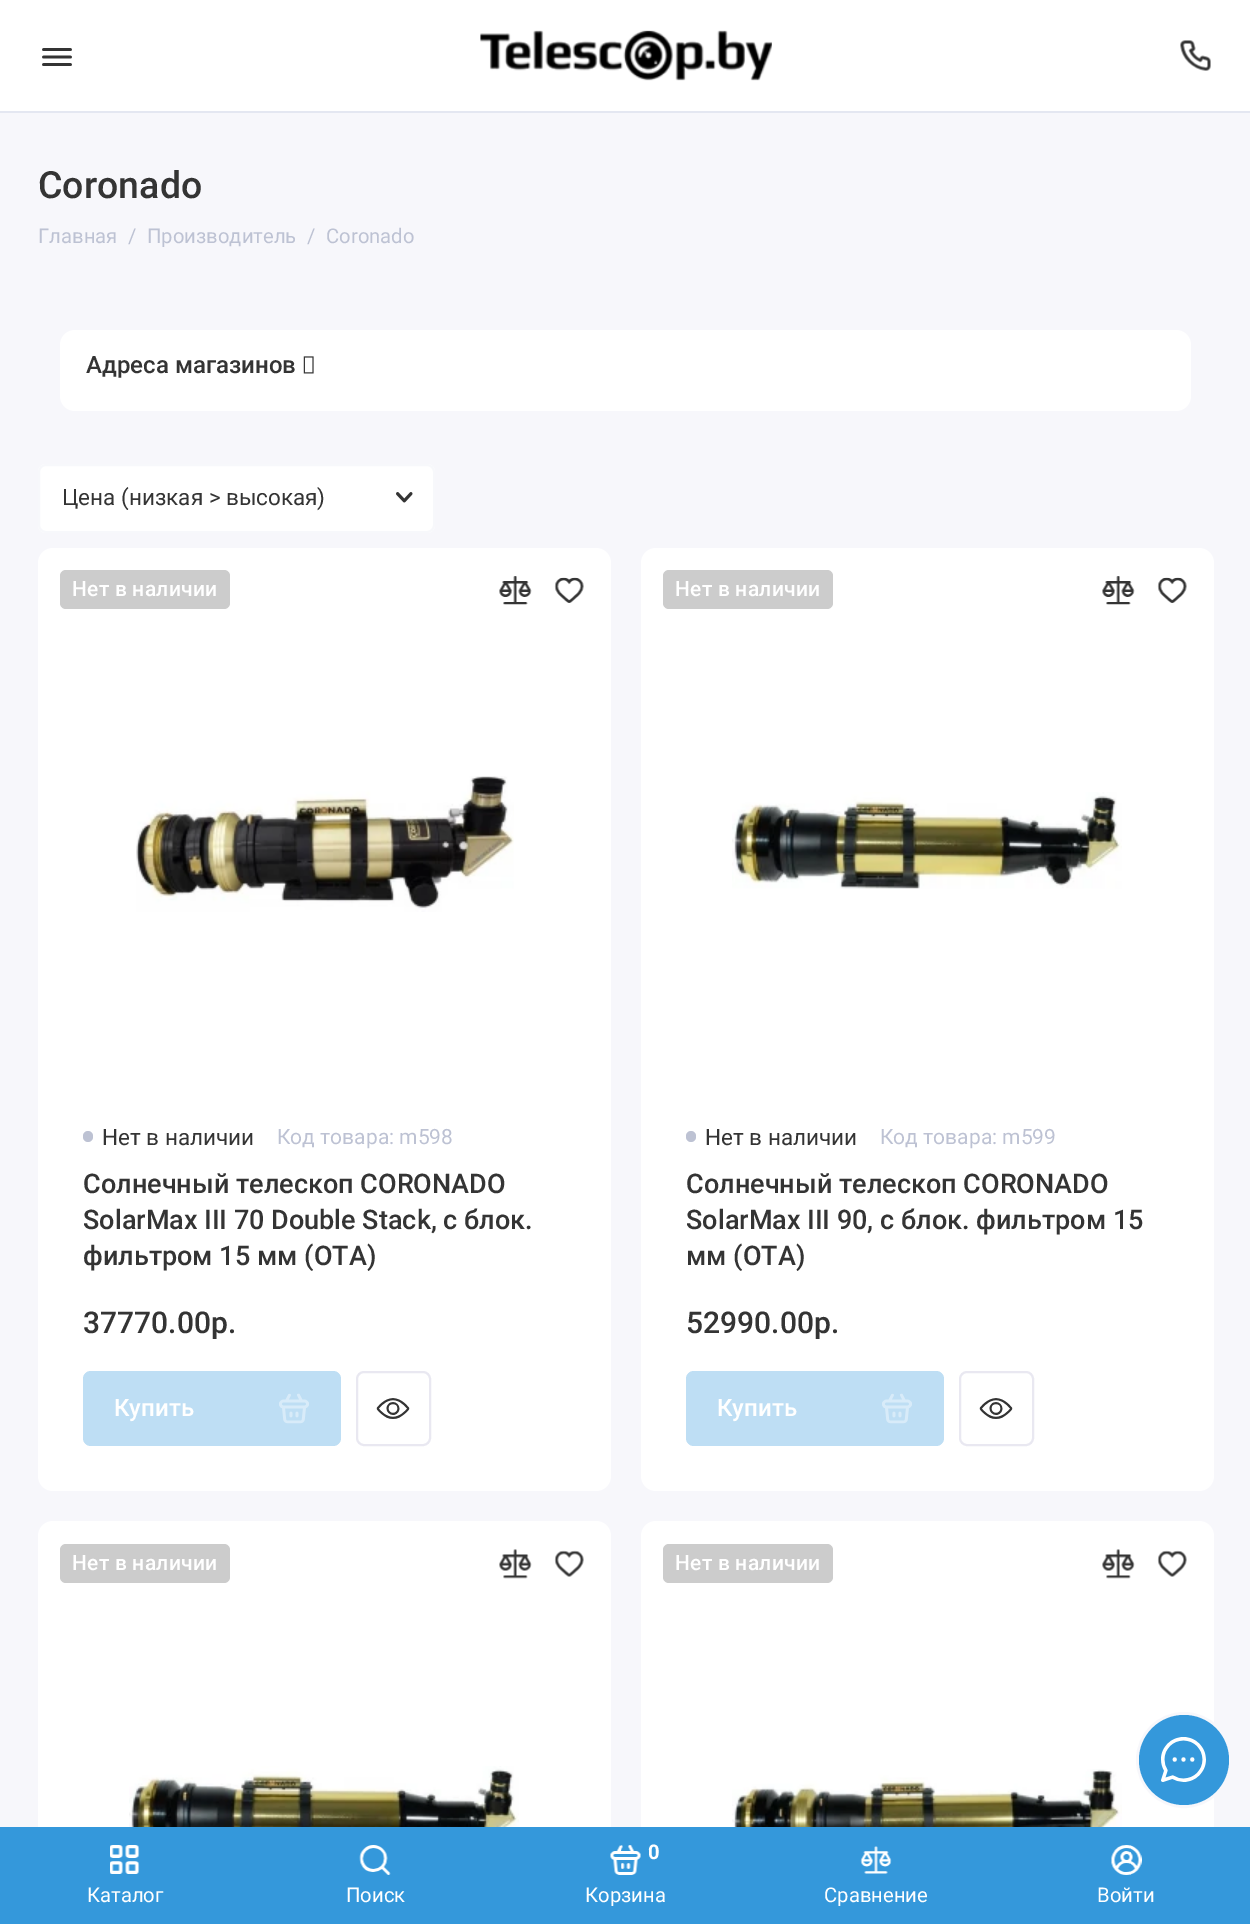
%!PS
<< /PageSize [1250 1924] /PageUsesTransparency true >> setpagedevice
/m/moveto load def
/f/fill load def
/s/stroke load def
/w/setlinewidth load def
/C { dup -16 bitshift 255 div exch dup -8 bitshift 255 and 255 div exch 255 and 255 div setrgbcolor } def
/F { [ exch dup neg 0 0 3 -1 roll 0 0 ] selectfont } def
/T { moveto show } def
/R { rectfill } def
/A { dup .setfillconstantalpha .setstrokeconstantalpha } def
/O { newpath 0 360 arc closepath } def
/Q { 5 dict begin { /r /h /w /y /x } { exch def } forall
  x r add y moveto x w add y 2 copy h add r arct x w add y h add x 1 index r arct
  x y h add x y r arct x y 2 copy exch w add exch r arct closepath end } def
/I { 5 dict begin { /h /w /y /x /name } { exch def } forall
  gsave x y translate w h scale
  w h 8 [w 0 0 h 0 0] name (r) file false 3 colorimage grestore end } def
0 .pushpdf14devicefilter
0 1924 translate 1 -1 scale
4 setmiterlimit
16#F7F7FB C
0 0 1250 1924 R
/Roboto-Medium 37.5 F
16#343434 C
(Coronado) 38 198 T
/Roboto-Regular 20.25 F
16#BDC2D3 C
(Главная) 38 243 T
(/) 128 243 T
(Производитель) 147 243 T
(/) 307 243 T
(Coronado) 326 243 T
16#FFFFFF C
60 330 1131 81 15 Q f
/Roboto-Medium 24 F
16#343434 C
(Адреса магазинов) 86 373 T
(1.rgb) 303 356 11 18 I
16#FFFFFF C
38 464 397 69 8 Q f
(2.rgb) 396 492 17 11 I
16#F7F8FB C
2 w
39 465 395 67 7 Q s
/Roboto-Regular 22.5 F
16#343434 C
(Цена \(низкая > высокая\)) 62 505 T
16#FFFFFF C
38 548 573 943 15 Q f
16#CCCCCC C
60 570 170 39 6 Q f
/Roboto-Medium 21 F
16#FFFFFF C
72 596 m .25 0 (Нет в наличии) ashow
(3.rgb) 499 576 33 29 I
(4.rgb) 554 577 30 26 I
(5.rgb) 136 776 378 136 I
16#BDC2D3 C
83 1131 10 11 5 Q f
/Roboto-Regular 22.5 F
16#343434 C
(Нет в наличии) 102 1145 T
/Roboto-Regular 21 F
16#BDC2D3 C
(Код товара: m598) 277 1144 T
/Roboto-Medium 27 F
16#343434 C
(Солнечный телескоп CORONADO) 83 1193 T
(SolarMax III 70 Double Stack, с блок.) 83 1229 T
(фильтром 15 мм \(OTA\)) 83 1265 T
/Roboto-Medium 30 F
(37770.00р.) 83 1333 T
16#AED6F1 C
83 1371 258 75 8 Q f
/Roboto-Medium 24 F
16#FFFFFF C
(Купить) 114 1416 T
(6.rgb) 279 1393 30 31 I
0.2 A
83 1371 258 75 8 Q f
1 A
16#E9E8F1 C
357 1372 73 73 7 Q s
(7.rgb) 376 1398 34 21 I
16#FFFFFF C
641 548 573 943 15 Q f
16#CCCCCC C
663 570 170 39 6 Q f
/Roboto-Medium 21 F
16#FFFFFF C
675 596 m .25 0 (Нет в наличии) ashow
(3.rgb) 1102 576 33 29 I
(4.rgb) 1157 577 30 26 I
(8.rgb) 732 792 390 97 I
16#BDC2D3 C
686 1131 10 11 5 Q f
/Roboto-Regular 22.5 F
16#343434 C
(Нет в наличии) 705 1145 T
/Roboto-Regular 21 F
16#BDC2D3 C
(Код товара: m599) 880 1144 T
/Roboto-Medium 27 F
16#343434 C
(Солнечный телескоп CORONADO) 686 1193 T
(SolarMax III 90, с блок. фильтром 15) 686 1229 T
(мм \(OTA\)) 686 1265 T
/Roboto-Medium 30 F
(52990.00р.) 686 1333 T
16#AED6F1 C
686 1371 258 75 8 Q f
/Roboto-Medium 24 F
16#FFFFFF C
(Купить) 717 1416 T
(6.rgb) 882 1393 30 31 I
0.2 A
686 1371 258 75 8 Q f
1 A
16#E9E8F1 C
960 1372 73 73 7 Q s
(7.rgb) 979 1398 34 21 I
16#FFFFFF C
38 1521 573 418 15 Q f
16#CCCCCC C
60 1544 170 39 6 Q f
/Roboto-Medium 21 F
16#FFFFFF C
72 1570 m .25 0 (Нет в наличии) ashow
(9.rgb) 499 1549 33 30 I
(10.rgb) 554 1550 30 27 I
(11.rgb) 129 1766 390 61 I
641 1521 573 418 15 Q f
16#CCCCCC C
663 1544 170 39 6 Q f
16#FFFFFF C
675 1570 m .25 0 (Нет в наличии) ashow
(9.rgb) 1102 1549 33 30 I
(10.rgb) 1157 1550 30 27 I
(12.rgb) 732 1769 390 58 I
16#F7F7FB C
3 w
1184 1760 46.5 O s
16#3498DB C
1184 1760 45 O f
(13.rgb) 1161 1737 45 45 I
16#FFFFFF C
0 0 1250 111 R
16#E4E7F1 C
0 111 1250 2 R
(14.rgb) 42 48 30 18 I
(15.rgb) 480 30 292 51 I
(16.rgb) 1180 40 31 31 I
16#3498DB C
0 1827 1250 97 R
(17.rgb) 110 1845 30 29 I
/Roboto-Regular 20.25 F
16#FFFFFF C
(Каталог) 87 1902 T
(18.rgb) 359 1845 32 30 I
(Поиск) 346 1902 T
(19.rgb) 610 1845 31 30 I
/Roboto-Bold 20.25 F
(0) 648 1859 T
/Roboto-Regular 20.25 F
(Корзина) 585 1902 T
(20.rgb) 860 1846 32 28 I
(Сравнение) 824 1902 T
(21.rgb) 1111 1845 31 30 I
(Войти) 1097 1902 T
.poppdf14devicefilter showpage
